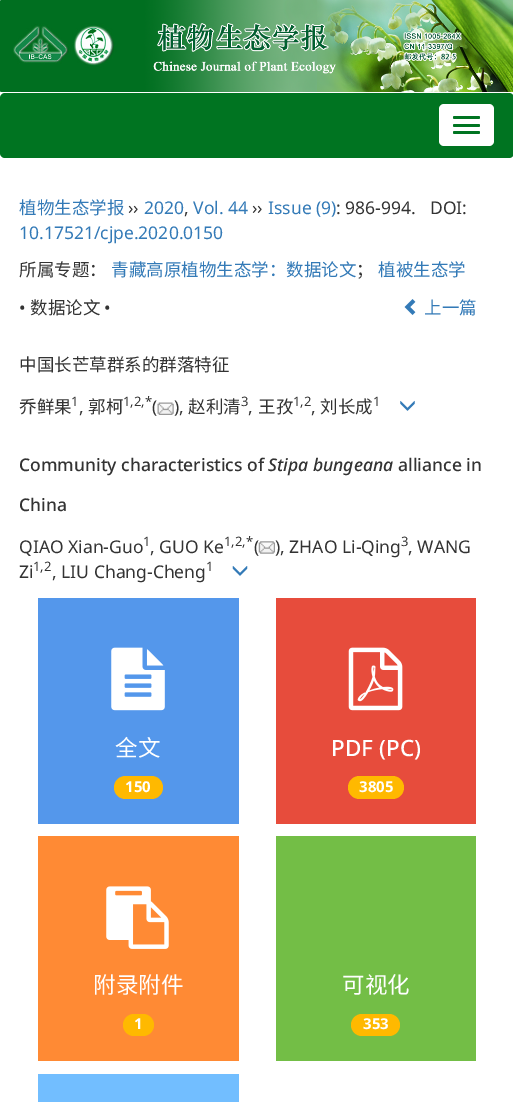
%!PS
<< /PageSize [513 1102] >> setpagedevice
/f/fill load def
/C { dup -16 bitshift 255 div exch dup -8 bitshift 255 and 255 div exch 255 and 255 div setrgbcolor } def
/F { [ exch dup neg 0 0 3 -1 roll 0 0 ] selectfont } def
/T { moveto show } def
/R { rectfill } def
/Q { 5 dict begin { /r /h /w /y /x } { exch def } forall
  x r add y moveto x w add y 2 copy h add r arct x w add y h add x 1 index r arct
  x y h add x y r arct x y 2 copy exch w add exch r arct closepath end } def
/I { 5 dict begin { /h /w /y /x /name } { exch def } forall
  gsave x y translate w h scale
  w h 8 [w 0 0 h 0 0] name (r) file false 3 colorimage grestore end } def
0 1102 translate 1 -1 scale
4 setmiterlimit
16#FFFFFF C
0 0 513 1102 R
(1.rgb) 0 0 513 92 I
16#007421 C
0 93 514 65 5 Q f
16#FFFFFF C
439 104 55 42 5 Q f
16#007421 C
453 116 27 3 1.5 Q f
453 124 27 3 1.5 Q f
453 131 27 3 1.5 Q f
/NotoSansCJKSC-Regular 17.5 F
16#337AB7 C
(植物生态学报) 19 214 T
/NotoSans-Regular 17.5 F
16#333333 C
(››) 128 214 T
16#337AB7 C
(2020) 144 214 T
(Vol. 44) 193 214 T
16#333333 C
(››) 252 214 T
16#337AB7 C
(Issue \(9\)) 268 214 T
16#333333 C
(: 986-994.) 336 214 T
(DOI:) 430 214 T
(,) 184 214 T
16#337AB7 C
(10.17521/cjpe.2020.0150) 19 239 T
/NotoSansCJKSC-Regular 17.5 F
16#333333 C
(所属专题：) 19 276 T
16#337AB7 C
(青藏高原植物生态学：数据论文) 111 276 T
16#333333 C
(；) 356 276 T
16#337AB7 C
(植被生态学) 378 276 T
/NotoSans-Regular 17.5 F
16#333333 C
(•) 19 314 T
/NotoSansCJKSC-Regular 17.5 F
(数据论文) 30 314 T
/NotoSans-Regular 17.5 F
(•) 104 314 T
(2.rgb) 404 299 12 16 I
/NotoSansCJKSC-Regular 17.5 F
16#337AB7 C
(上一篇) 424 314 T
16#333333 C
(中国长芒草群系的群落特征) 19 371 T
(乔鲜果) 19 413 T
/NotoSans-Regular 13 F
(1) 71 406 T
/NotoSans-Regular 17.5 F
(,) 79 413 T
/NotoSansCJKSC-Regular 17.5 F
(郭柯) 88 413 T
/NotoSans-Regular 13 F
(1,2,*) 123 406 T
/NotoSans-Regular 17.5 F
(\() 152 413 T
(3.rgb) 157 402 17 13 I
(\),) 174 413 T
/NotoSansCJKSC-Regular 17.5 F
(赵利清) 188 413 T
/NotoSans-Regular 13 F
(3) 241 406 T
/NotoSans-Regular 17.5 F
(,) 248 413 T
/NotoSansCJKSC-Regular 17.5 F
(王孜) 258 413 T
/NotoSans-Regular 13 F
(1,2) 293 406 T
/NotoSans-Regular 17.5 F
(,) 311 413 T
/NotoSansCJKSC-Regular 17.5 F
(刘长成) 320 413 T
/NotoSans-Regular 13 F
(1) 373 406 T
(4.rgb) 400 400 15 11 I
/NotoSans-Medium 17.5 F
(Community characteristics of) 19 471 T
/NotoSans-MediumItalic 17.5 F
(Stipa bungeana) 268 471 T
/NotoSans-Medium 17.5 F
(alliance in) 398 471 T
(China) 19 511 T
/NotoSans-Regular 17.5 F
(QIAO Xian-Guo) 19 553 T
/NotoSans-Regular 13 F
(1) 143 546 T
/NotoSans-Regular 17.5 F
(, GUO Ke) 150 553 T
/NotoSans-Regular 13 F
(1,2,*) 224 546 T
/NotoSans-Regular 17.5 F
(\() 254 553 T
(5.rgb) 258 541 17 13 I
(\), ZHAO Li-Qing) 275 553 T
/NotoSans-Regular 13 F
(3) 401 546 T
/NotoSans-Regular 17.5 F
(, WANG) 408 553 T
(Zi) 19 578 T
/NotoSans-Regular 13 F
(1,2) 33 571 T
/NotoSans-Regular 17.5 F
(, LIU Chang-Cheng) 52 578 T
/NotoSans-Regular 13 F
(1) 206 571 T
(6.rgb) 232 566 16 10 I
16#5497EB C
38 598 201 226 R
(7.rgb) 111 647 54 64 I
/NotoSansCJKSC-Regular 22.5 F
16#FFFFFF C
(全文) 115 756 T
16#FFB900 C
114 776 49 23 11.5 Q f
/NotoSans-Bold 15 F
16#FFFFFF C
(150) 125 792 T
16#E74C3C C
276 598 200 226 R
(8.rgb) 348 647 55 64 I
/NotoSans-Medium 22.5 F
16#FFFFFF C
(PDF \(PC\)) 331 756 T
16#FFB900 C
348 776 56 23 11.5 Q f
/NotoSans-Bold 15 F
16#FFFFFF C
(3805) 359 792 T
16#FF8A34 C
38 836 201 225 R
(9.rgb) 106 886 63 63 I
/NotoSansCJKSC-Regular 22.5 F
16#FFFFFF C
(附录附件) 93 993 T
16#FFB900 C
123 1014 31 22 11 Q f
/NotoSans-Bold 15 F
16#FFFFFF C
(1) 134 1029 T
16#73BE46 C
276 836 200 225 R
/NotoSansCJKSC-Regular 22.5 F
16#FFFFFF C
(可视化) 342 993 T
16#FFB900 C
351 1014 49 22 11 Q f
/NotoSans-Bold 15 F
16#FFFFFF C
(353) 363 1029 T
16#72BEFF C
38 1074 201 28 R
showpage
